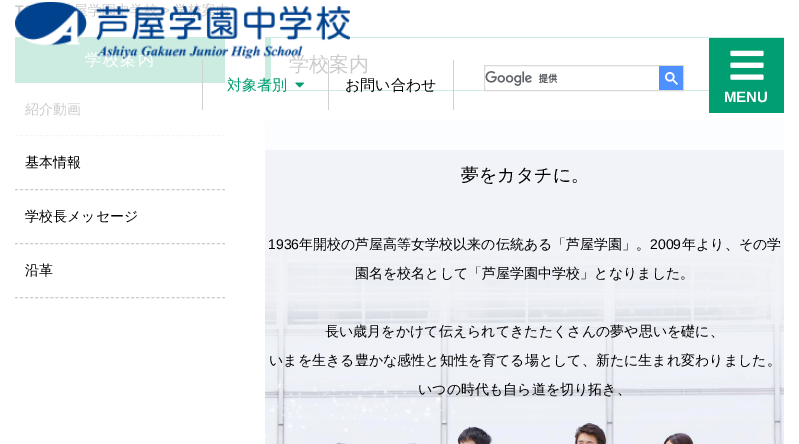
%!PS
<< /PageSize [799 444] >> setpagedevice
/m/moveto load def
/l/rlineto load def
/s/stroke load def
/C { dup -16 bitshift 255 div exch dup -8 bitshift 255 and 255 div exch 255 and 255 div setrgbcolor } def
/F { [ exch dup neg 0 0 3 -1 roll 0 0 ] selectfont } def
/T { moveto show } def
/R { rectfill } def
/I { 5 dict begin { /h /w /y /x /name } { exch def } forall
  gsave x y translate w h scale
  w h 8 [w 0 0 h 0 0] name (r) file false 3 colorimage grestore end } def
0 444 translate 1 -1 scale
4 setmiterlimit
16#FFFFFF C
0 0 799 444 R
/LiberationSans-Bold 14 F
16#CCCCCC C
(T) 15 15 T
/WenQuanYiZenHei-Bold 14 F
(学) 88 15 T
/LiberationSans-Regular 14 F
(>) 162 15 T
/WenQuanYiZenHei-Medium 14 F
(学校案内) 174 15 T
16#CCECE2 C
15 37 210 46 R
/WenQuanYiZenHei-Medium 16 F
16#FFFFFF C
85 65 m 1.5 0 (学校案内) ashow
16#F5F5F5 C
[3 2.05] 0 setdash
15 135.5 m 210 0 l s
/WenQuanYiZenHei-Medium 14 F
16#CCCCCC C
(紹介動画) 25 114 T
15 189.5 m 210 0 l s
16#000000 C
(基本情報) 25 167 T
16#CCCCCC C
15 243.5 m 210 0 l s
16#000000 C
(学校長メッセージ) 25 221 T
16#CCCCCC C
15 297.5 m 210 0 l s
16#000000 C
(沿革) 25 275 T
16#CCECE2 C
265 37 519 1 R
265 90 444 1 R
265 37 6 54 R
/WenQuanYiZenHei-Medium 20 F
16#CCCCCC C
(学校案内) 289 71 T
16#F1F3F8 C
265 150 519 269 R
16#FCFDFE C
265 121 519 29 R
/WenQuanYiZenHei-Medium 18 F
16#000000 C
(夢をカタチに。) 461 181 T
/LiberationSans-Regular 14 F
(1936) 268 249 T
(1.rgb) 265 251 519 193 I
/WenQuanYiZenHei-Medium 14 F
(年開校の芦屋高等女学校以来の伝統ある「芦屋学園」。) 299 249 T
/LiberationSans-Regular 14 F
(2009) 650 249 T
/WenQuanYiZenHei-Medium 14 F
(年より、その学) 682 249 T
(園名を校名として「芦屋学園中学校」となりました。) 355 278 T
(長い歳月をかけて伝えられてきたたくさんの夢や思いを礎に、) 325 336 T
(いまを生きる豊かな感性と知性を育てる場として、新たに生まれ変わりました。) 269 365 T
(いつの時代も自ら道を切り拓き、) 418 394 T
(2.rgb) 15 2 335 57 I
16#D1D1D1 C
202 60 1 50 R
/WenQuanYiZenHei-Medium 15 F
16#029D71 C
(対象者別) 227 90 T
(3.rgb) 295 82 9 6 I
16#D1D1D1 C
453 60 1 50 R
328 60 1 50 R
16#000000 C
(お問い合わせ) 345 90 T
16#D9D9D9 C
[] 0 setdash
484.5 65.5 199 25 rectstroke
(4.rgb) 485 71 73 15 I
16#4D90FE C
659 66 24 24 R
(5.rgb) 665 72 13 13 I
16#019E71 C
709 38 75 75 R
(6.rgb) 730 50 34 30 I
/LiberationSans-Bold 15 F
16#FFFFFF C
(MENU) 724 102 T
showpage
